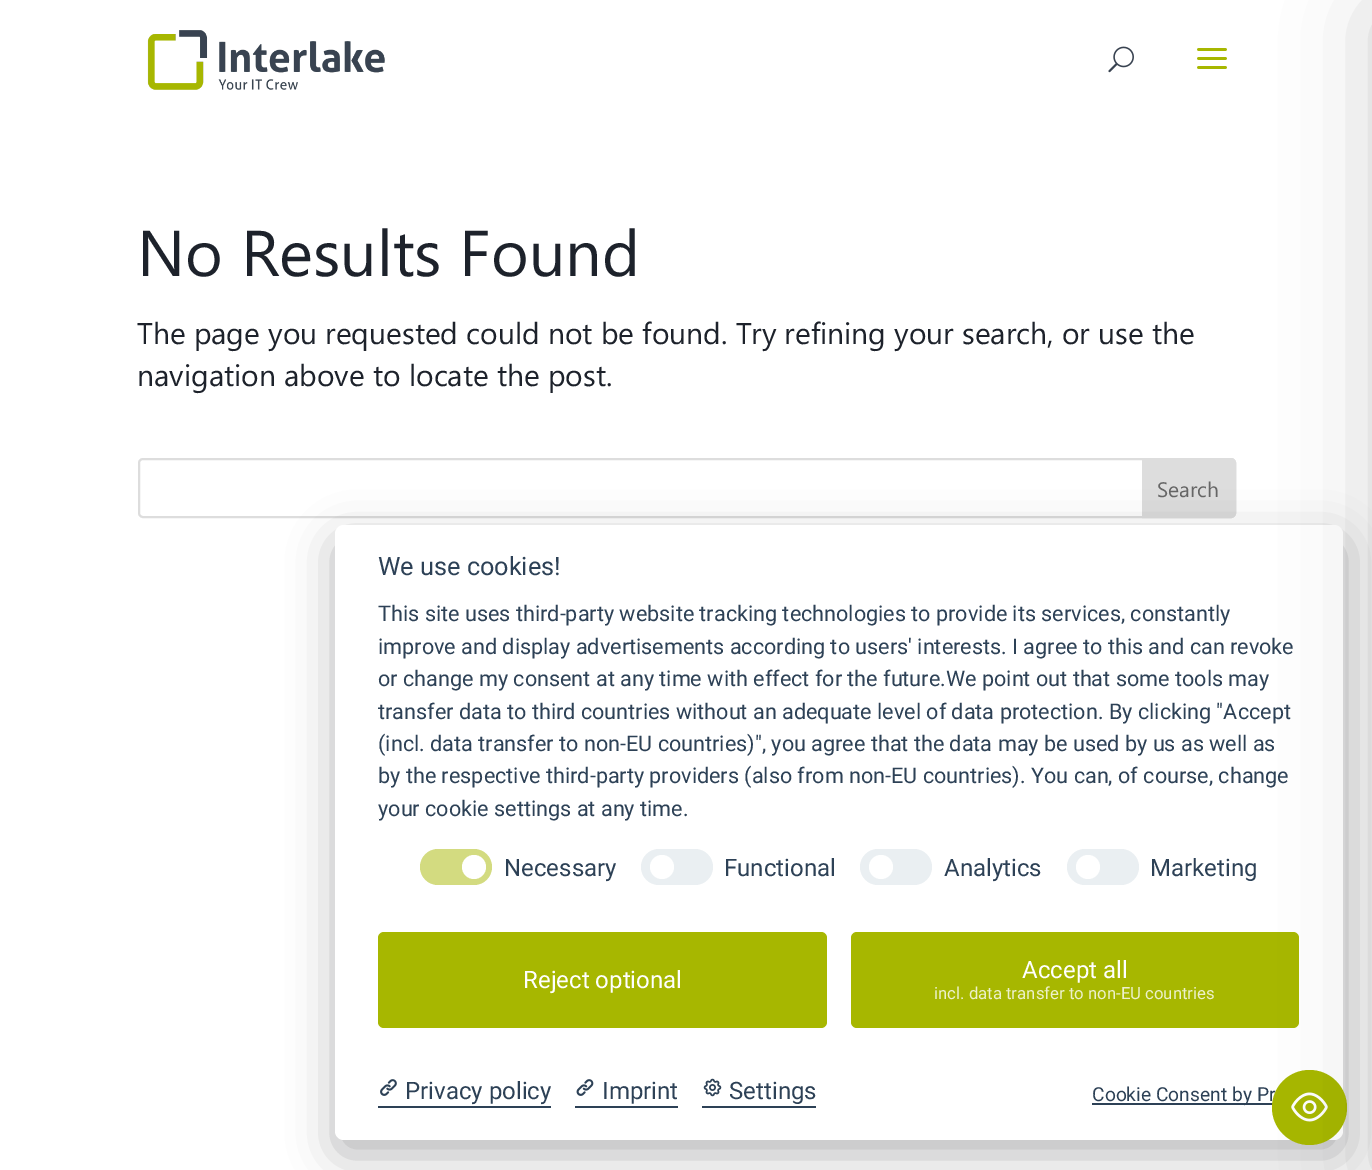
%!PS
<< /PageSize [1372 1170] /PageUsesTransparency true >> setpagedevice
/m/moveto load def
/l/rlineto load def
/c/rcurveto load def
/z/closepath load def
/f/fill load def
/s/stroke load def
/q/gsave load def
/Q_/grestore load def
/w/setlinewidth load def
/C { dup -16 bitshift 255 div exch dup -8 bitshift 255 and 255 div exch 255 and 255 div setrgbcolor } def
/F { [ exch dup neg 0 0 3 -1 roll 0 0 ] selectfont } def
/T { moveto show } def
/R { rectfill } def
/A { dup .setfillconstantalpha .setstrokeconstantalpha } def
/O { newpath 0 360 arc closepath } def
/Q { 5 dict begin { /r /h /w /y /x } { exch def } forall
  x r add y moveto x w add y 2 copy h add r arct x w add y h add x 1 index r arct
  x y h add x y r arct x y 2 copy exch w add exch r arct closepath end } def
/S { 12 dict begin { /a /b /q /h /w /y /x } { exch def } forall gsave /was 0 def
  9 -2 -9 { dup b mul 4 div /e exch def 1 sub .425 mul 2.718 exch exp 1 add a .99 .min exch div /now exch def
    1 1 now sub 1 was sub div sub A /was now def
    w h .min e 2 mul add 0 gt { x e sub y e sub w e 2 mul add h e 2 mul add
      q e add b .6 mul add w h .min 2 div e add .min 0 .max Q fill } if } for grestore end } def
/I { 5 dict begin { /h /w /y /x /name } { exch def } forall
  gsave x y translate w h scale
  w h 8 [w 0 0 h 0 0] name (r) file false 3 colorimage grestore end } def
0 .pushpdf14devicefilter
0 1170 translate 1 -1 scale
4 setmiterlimit
16#FFFFFF C
0 0 1372 1170 R
(1.rgb) 147 30 238 60 I
(2.rgb) 1108 46 26 27 I
(3.rgb) 1197 48 30 21 I
/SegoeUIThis-Regular 64.5 F
16#1D222B C
(No Results Found) 137 276 T
/SegoeUIThis-Regular 30 F
(The page you requested could not be found. Try refining your search, or use the) 137 344 T
(navigation above to locate the post.) 137 386 T
16#DDDDDD C
2 w
139 459 1096 58 4 Q s
1143 459 m 88 0 l 2 0 4 2 4 4 c 0 50 l 0 2 -2 4 -4 4 c -88 0 l z q f Q_
s
/SegoeUIThis-Regular 21 F
16#666666 C
(Search) 1157 497 T
16#020203 C
335 540 1008 615 9 22.5 .28 S
16#FFFFFF C
335 525 1008 615 9 Q f
16#A7B700 C
851 932 448 96 6 Q f
16#2D4156 C
1092 1103 181 2 R
/Roboto-Regular 19.25 F
(Cookie Consent by Pr) 1092 1101 T
16#A7B700 C
1309.5 1107.5 37.5 O f
(7.rgb) 1291 1092 37 30 I
16#000000 C
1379 15 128 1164 0 45 .2 S
/Roboto-Regular 25.25 F
16#2D4156 C
(We use cookies!) 378 575 T
/Roboto-Regular 21.6 F
(This site uses third-party website tracking technologies to provide its services, constantly) 378 621 T
(improve and display advertisements according to users' interests. I agree to this and can revoke) 378 654 T
(or change my consent at any time with effect for the future.We point out that some tools may) 378 686 T
(transfer data to third countries without an adequate level of data protection. By clicking "Accept) 378 719 T
(\(incl. data transfer to non-EU countries\)", you agree that the data may be used by us as well as) 378 751 T
(by the respective third-party providers \(also from non-EU countries\). You can, of course, change) 378 783 T
(your cookie settings at any time.) 378 816 T
16#D3DB80 C
420 849 72 36 18 Q f
16#FFFFFF C
474 867 12 O f
/Roboto-Regular 24 F
16#2D4156 C
(Necessary) 504 876 T
16#EAEFF2 C
641 849 72 36 18 Q f
16#FFFFFF C
662 867 12 O f
16#2D4156 C
(Functional) 724 876 T
16#EAEFF2 C
860 849 72 36 18 Q f
16#FFFFFF C
881 867 12 O f
16#2D4156 C
(Analytics) 944 876 T
16#EAEFF2 C
1067 849 72 36 18 Q f
16#FFFFFF C
1088 867 12 O f
16#2D4156 C
(Marketing) 1150 876 T
16#A7B700 C
378 932 449 96 6 Q f
16#FFFFFF C
(Reject optional) 523 988 T
(Accept all) 1022 978 T
/Roboto-Regular 16.75 F
16#EDF1CC C
(incl. data transfer to non-EU countries) 934 999 T
16#2D4156 C
378 1106 173 2 R
(4.rgb) 380 1079 17 17 I
/Roboto-Regular 24 F
(Privacy policy) 405 1099 T
575 1106 103 2 R
(5.rgb) 576 1079 18 17 I
(Imprint) 602 1099 T
702 1106 114 2 R
(6.rgb) 703 1078 19 19 I
(Settings) 729 1099 T
.poppdf14devicefilter showpage
